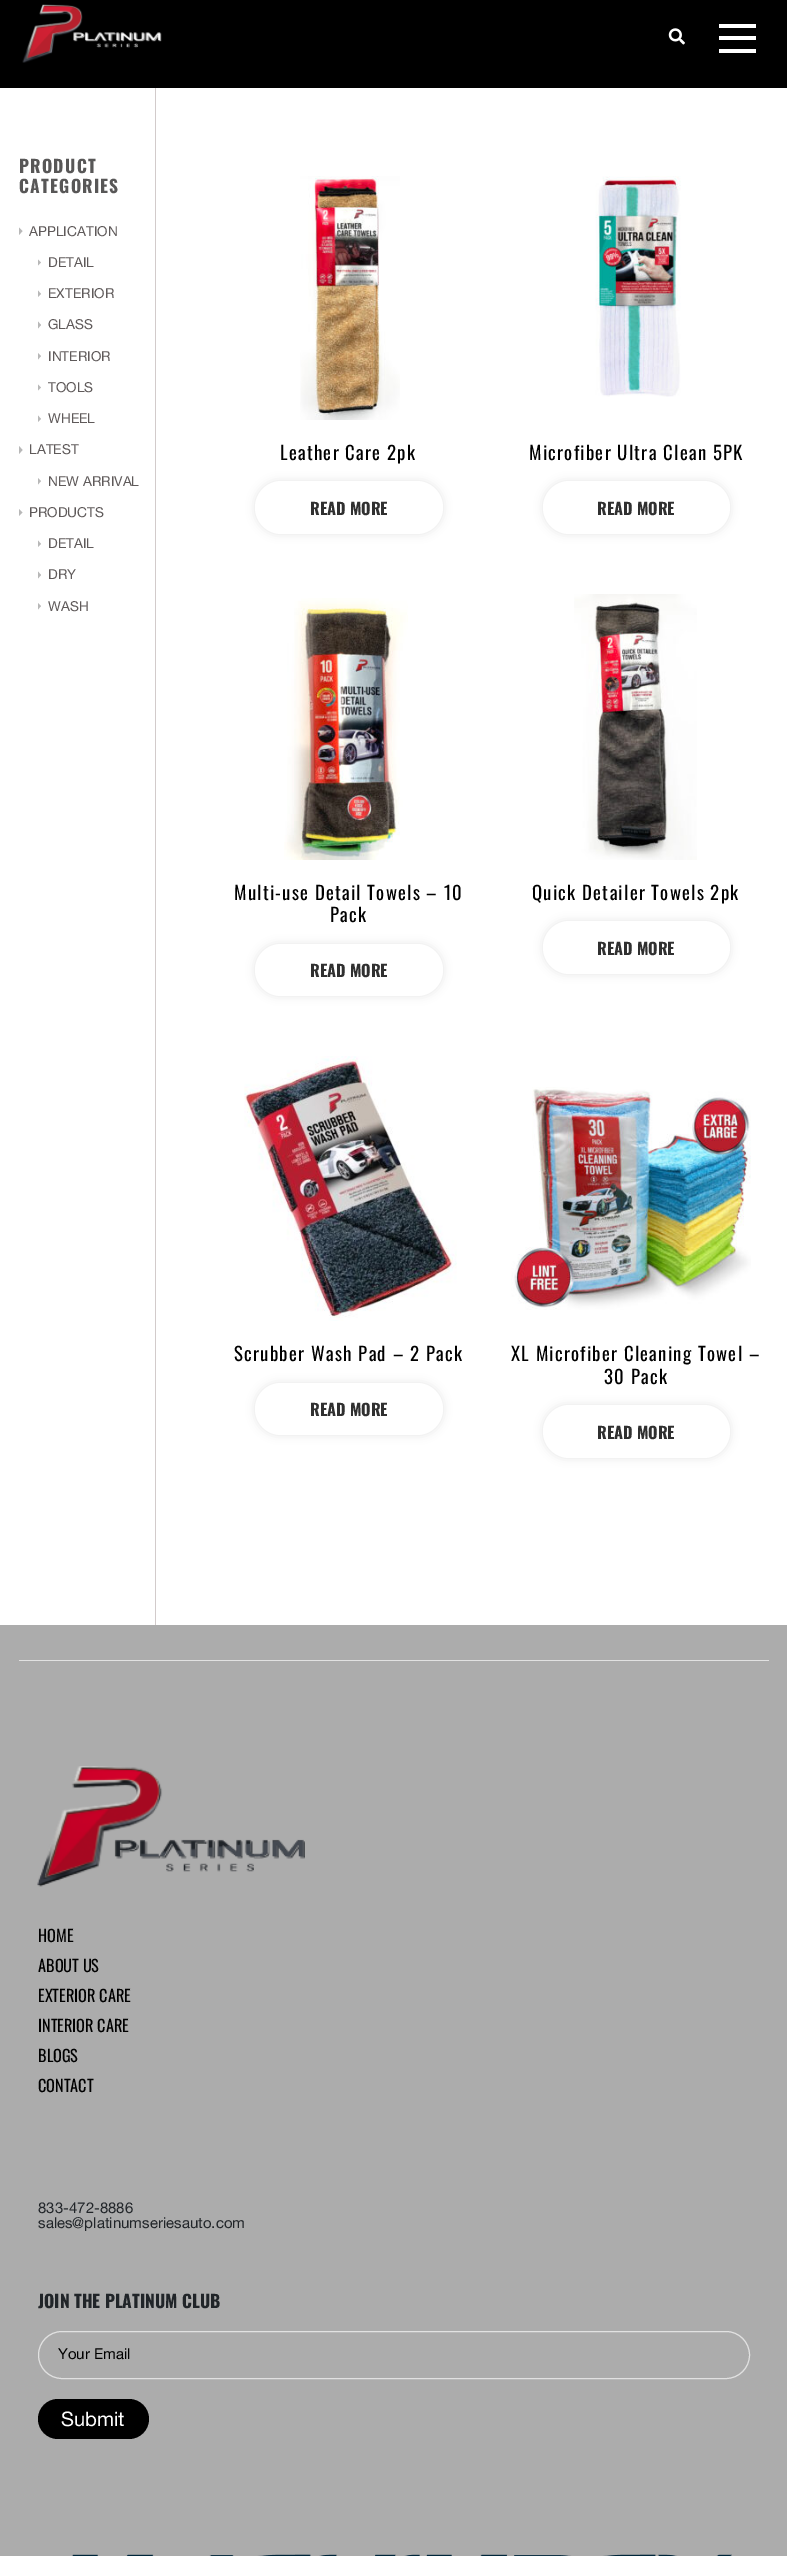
%!PS
<< /PageSize [787 2556] /PageUsesTransparency true >> setpagedevice
/m/moveto load def
/l/rlineto load def
/z/closepath load def
/f/fill load def
/s/stroke load def
/q/gsave load def
/Q_/grestore load def
/C { dup -16 bitshift 255 div exch dup -8 bitshift 255 and 255 div exch 255 and 255 div setrgbcolor } def
/F { [ exch dup neg 0 0 3 -1 roll 0 0 ] selectfont } def
/T { moveto show } def
/R { rectfill } def
/A { dup .setfillconstantalpha .setstrokeconstantalpha } def
/Q { 5 dict begin { /r /h /w /y /x } { exch def } forall
  x r add y moveto x w add y 2 copy h add r arct x w add y h add x 1 index r arct
  x y h add x y r arct x y 2 copy exch w add exch r arct closepath end } def
/S { 12 dict begin { /a /b /q /h /w /y /x } { exch def } forall gsave /was 0 def
  9 -2 -9 { dup b mul 4 div /e exch def 1 sub .425 mul 2.718 exch exp 1 add a .99 .min exch div /now exch def
    1 1 now sub 1 was sub div sub A /was now def
    w h .min e 2 mul add 0 gt { x e sub y e sub w e 2 mul add h e 2 mul add
      q e add b .6 mul add w h .min 2 div e add .min 0 .max Q fill } if } for grestore end } def
/I { 5 dict begin { /h /w /y /x /name } { exch def } forall
  gsave x y translate w h scale
  w h 8 [w 0 0 h 0 0] name (r) file false 3 colorimage grestore end } def
0 .pushpdf14devicefilter
0 2556 translate 1 -1 scale
4 setmiterlimit
16#FFFFFF C
0 0 787 2556 R
16#000000 C
0 0 787 88 R
(1.rgb) 22 4 140 59 I
(2.rgb) 668 28 17 17 I
16#FFFFFF C
719 24 37 4 R
719 36 37 4 R
719 49 37 4 R
/Oswald-Bold 17.5 F
16#585757 C
19 173 m 1.25 0 (PRODUCT) ashow
19 193 m 1.25 0 (CATEGORIES) ashow
16#B8B8B8 C
19 235 m 0 -7.5 l 3.5 3.5 l z f
/HelveticaNeue-Regular 13.75 F
16#5F5A5A C
(APPLICATION) 29 236 T
q
38 248 141 31 rectclip
16#B8B8B8 C
37.5 266 m 0 -7 l 3.5 3.5 l z f
Q_
(DETAIL) 48 267 T
q
38 279 141 31 rectclip
16#B8B8B8 C
37.5 297.5 m 0 -7.5 l 3.5 4 l z f
Q_
(EXTERIOR) 48 298 T
q
38 310 141 31 rectclip
16#B8B8B8 C
37.5 329 m 0 -8 l 3.5 4 l z f
Q_
(GLASS) 48 329 T
q
38 341 141 32 rectclip
16#B8B8B8 C
37.5 360 m 0 -7.5 l 3.5 3.5 l z f
Q_
(INTERIOR) 48 361 T
q
38 373 141 31 rectclip
16#B8B8B8 C
37.5 391 m 0 -7 l 3.5 3.5 l z f
Q_
(TOOLS) 48 392 T
q
38 404 141 31 rectclip
16#B8B8B8 C
37.5 422.5 m 0 -7.5 l 3.5 4 l z f
Q_
(WHEEL) 48 423 T
16#B8B8B8 C
19 454 m 0 -8 l 3.5 4 l z f
16#5F5A5A C
(LATEST) 29 454 T
q
38 466 141 32 rectclip
16#B8B8B8 C
37.5 485 m 0 -7.5 l 3.5 3.5 l z f
Q_
(NEW ARRIVAL) 48 486 T
16#B8B8B8 C
19 516 m 0 -7 l 3.5 3.5 l z f
16#5F5A5A C
(PRODUCTS) 29 517 T
q
38 529 141 31 rectclip
16#B8B8B8 C
37.5 547.5 m 0 -7.5 l 3.5 4 l z f
Q_
(DETAIL) 48 548 T
q
38 560 141 31 rectclip
16#B8B8B8 C
37.5 579 m 0 -8 l 3.5 4 l z f
Q_
(DRY) 48 579 T
q
38 591 141 32 rectclip
16#B8B8B8 C
37.5 610 m 0 -7.5 l 3.5 3.5 l z f
Q_
(WASH) 48 611 T
16#D2CBCB C
155 88 1 1537 R
(3.rgb) 300 176 100 244 I
/Oswald-Regular 18.75 F
16#000000 C
280 460 m 1.25 0 (Leather Care 2pk) ashow
255 481 188 53 26.5 4.5 .1 S
16#FFFFFF C
255 481 188 53 26.5 Q f
/Oswald-Bold 16.25 F
16#303030 C
(READ MORE) 310 515 T
(4.rgb) 595 176 86 221 I
/Oswald-Regular 18.75 F
16#000000 C
529 460 m 1.25 0 (Microfiber Ultra Clean 5PK) ashow
543 481 187 53 26.5 4.5 .1 S
16#FFFFFF C
543 481 187 53 26.5 Q f
/Oswald-Bold 16.25 F
16#303030 C
(READ MORE) 597 515 T
(5.rgb) 284 598 124 262 I
/Oswald-Regular 18.75 F
16#000000 C
234 900 m 1.25 0 (Multi-use Detail Towels – 10) ashow
330 922 m 1.25 0 (Pack) ashow
255 944 188 52 26 4.5 .1 S
16#FFFFFF C
255 944 188 52 26 Q f
/Oswald-Bold 16.25 F
16#303030 C
(READ MORE) 310 977 T
(6.rgb) 574 594 123 266 I
/Oswald-Regular 18.75 F
16#000000 C
532 900 m 1.25 0 (Quick Detailer Towels 2pk) ashow
543 921 187 53 26.5 4.5 .1 S
16#FFFFFF C
543 921 187 53 26.5 Q f
/Oswald-Bold 16.25 F
16#303030 C
(READ MORE) 597 955 T
(7.rgb) 244 1056 213 265 I
/Oswald-Regular 18.75 F
16#000000 C
234 1361 m 1.25 0 (Scrubber Wash Pad – 2 Pack) ashow
255 1383 188 52 26 4.5 .1 S
16#FFFFFF C
255 1383 188 52 26 Q f
/Oswald-Bold 16.25 F
16#303030 C
(READ MORE) 310 1416 T
(8.rgb) 511 1087 240 223 I
/Oswald-Regular 18.75 F
16#000000 C
511 1361 m 1.25 0 (XL Microfiber Cleaning Towel –) ashow
604 1384 m 1.25 0 (30 Pack) ashow
543 1405 187 53 26.5 4.5 .1 S
16#FFFFFF C
543 1405 187 53 26.5 Q f
/Oswald-Bold 16.25 F
16#303030 C
(READ MORE) 597 1439 T
16#ACACAC C
0 1625 787 931 R
16#E1E1E1 C
19 1660 750 1 R
(9.rgb) 37 1766 268 121 I
/Oswald-Regular 16.25 F
16#000000 C
(HOME) 38 1942 T
(ABOUT US) 38 1972 T
(EXTERIOR CARE) 38 2002 T
(INTERIOR CARE) 38 2032 T
(BLOGS) 38 2062 T
(CONTACT) 38 2092 T
/HelveticaNeue-Regular 15 F
16#212529 C
(833-472-8886) 38 2213 T
(sales@platinumseriesauto.com) 38 2228 T
/Oswald-Bold 17.5 F
(JOIN THE PLATINUM CLUB) 38 2308 T
16#E1E1E1 C
38.5 2331.5 711 47 23.5 Q s
/HelveticaNeue-Regular 15 F
16#000000 C
(Your Email) 58 2359 T
38 2399 111 40 20 Q f
/HelveticaNeue-Regular 20 F
16#FFFFFF C
(Submit) 61 2426 T
(10.rgb) 72 2554 660 2 I
.poppdf14devicefilter showpage
